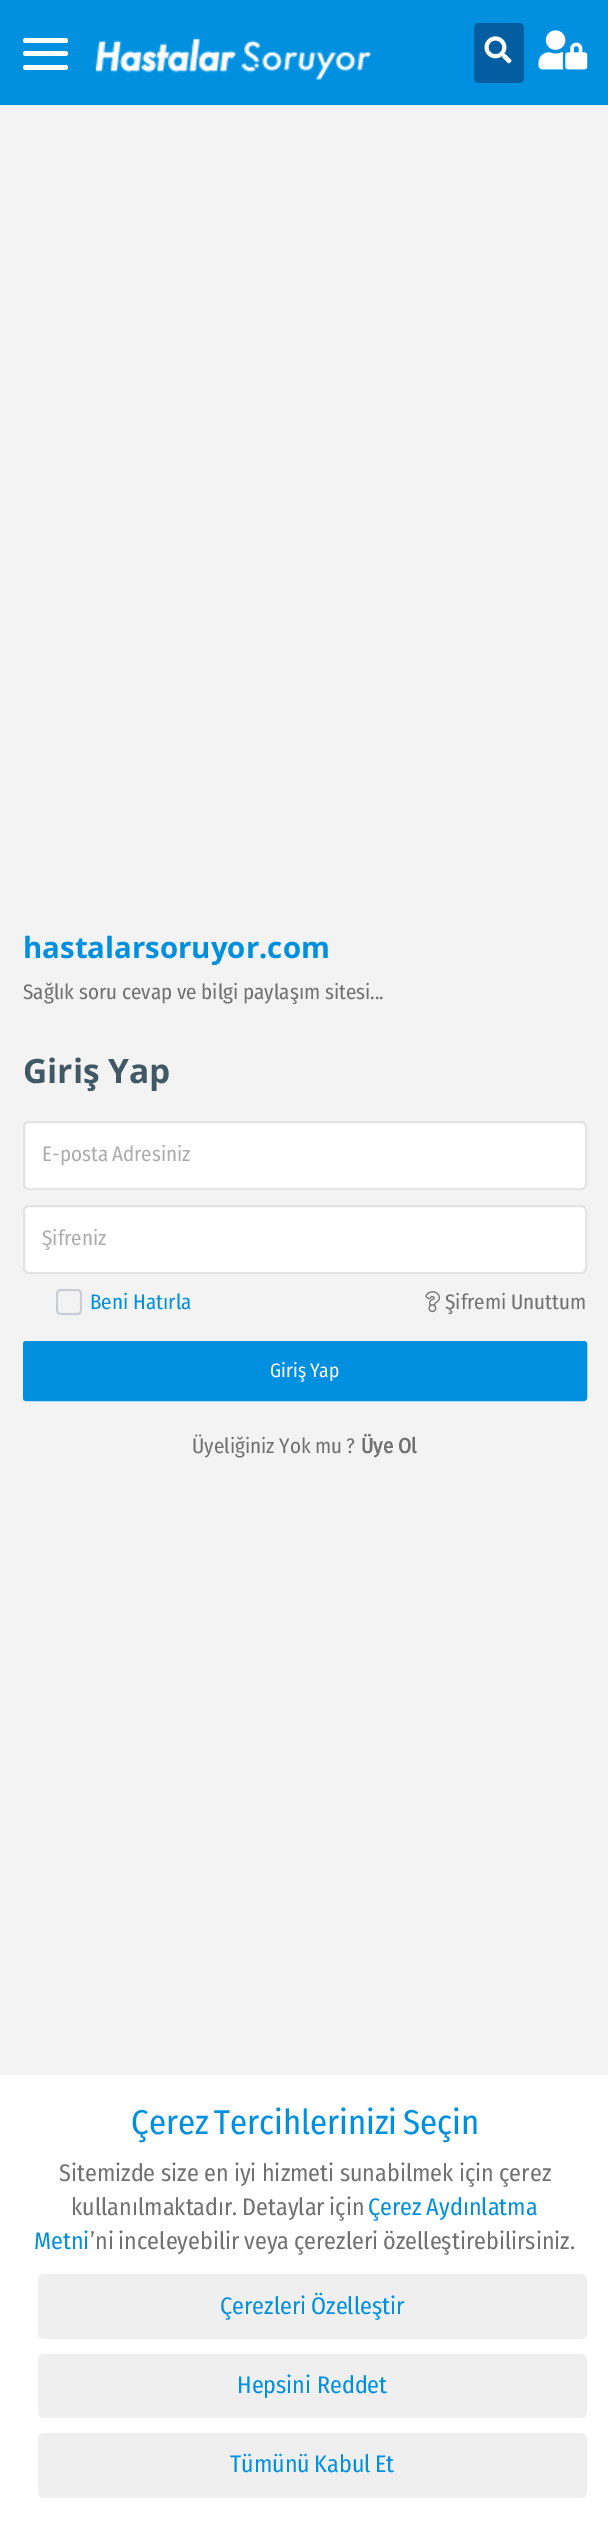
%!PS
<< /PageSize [608 2534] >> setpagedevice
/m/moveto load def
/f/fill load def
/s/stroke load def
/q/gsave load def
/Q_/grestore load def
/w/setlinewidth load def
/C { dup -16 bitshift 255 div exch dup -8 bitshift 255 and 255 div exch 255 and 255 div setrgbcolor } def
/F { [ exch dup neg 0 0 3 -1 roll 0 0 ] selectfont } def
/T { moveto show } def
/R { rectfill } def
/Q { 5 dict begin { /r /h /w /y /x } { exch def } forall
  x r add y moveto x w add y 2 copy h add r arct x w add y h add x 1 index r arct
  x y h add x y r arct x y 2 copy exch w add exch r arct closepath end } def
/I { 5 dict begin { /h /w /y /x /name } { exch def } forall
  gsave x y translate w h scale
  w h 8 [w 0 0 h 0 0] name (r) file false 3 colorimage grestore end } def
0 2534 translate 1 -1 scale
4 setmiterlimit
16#F3F3F3 C
0 0 608 2534 R
16#0090DF C
0 0 608 105 R
16#FFFFFF C
23 38 45 5 2.5 Q f
23 51 45 5 2.5 Q f
23 65 45 5 2.5 Q f
(1.rgb) 95 38 276 42 I
16#025EA1 C
474 23 50 60 5 Q f
(2.rgb) 484 36 28 28 I
(3.rgb) 538 30 50 40 I
/OpenSans-Bold 29.4 F
16#0090DF C
(hastalarsoruyor.com) 23 958 T
/FiraSansCondensed-Regular 21 F
16#717171 C
23 999 m -.25 0 32 (Sağlık soru cevap ve bilgi paylaşım sitesi...) widthshow
/OpenSans-Bold 33.5 F
16#405964 C
(Giriş Yap) 23 1083 T
16#FFFFFF C
24 1122 562 67 5 Q q f Q_
16#E4E4E4 C
2 w
s
/FiraSansCondensed-Regular 21 F
16#ACACAC C
42 1161 m -1 0 32 (E-posta Adresiniz) widthshow
16#FFFFFF C
24 1206 562 67 5 Q q f Q_
16#E4E4E4 C
s
16#ACACAC C
(Şifreniz) 42 1245 T
(4.rgb) 56 1289 27 27 I
16#0090DF C
(Beni Hatırla) 90 1309 T
(5.rgb) 425 1291 15 22 I
16#717171 C
(Şifremi) 445 1309 T
(Unuttum) 511 1309 T
16#0090DF C
24 1342 562 58 2 Q q f Q_
s
/FiraSansCondensed-Regular 19.5 F
16#FFFFFF C
270 1377 m -1 0 32 (Giriş Yap) widthshow
/FiraSansCondensed-Regular 21 F
16#717171 C
192 1453 m -.5 0 32 (Üyeliğiniz Yok mu ?) widthshow
/FiraSansCondensed-Bold 21 F
(Üye Ol) 361 1453 T
16#FFFFFF C
0 2075 608 459 R
/FiraSansCondensed-Regular 34.5 F
16#0090DF C
131 2134 m -2 0 32 (Çerez Tercihlerinizi Seçin) widthshow
/FiraSansCondensed-Regular 24 F
16#717171 C
59 2181 m -.25 0 32 (Sitemizde size en iyi hizmeti sunabilmek için çerez) widthshow
71 2215 m -1 0 32 (kullanılmaktadır. Detaylar için) widthshow
16#0090DF C
368 2215 m -1 0 32 (Çerez Aydınlatma) widthshow
(Metni) 34 2249 T
16#717171 C
90 2249 m -1 0 32 (’ni inceleyebilir veya çerezleri özelleştirebilirsiniz.) widthshow
16#EFEFEF C
38 2274 549 65 6 Q f
16#0090DF C
220 2314 m -1 0 32 (Çerezleri Özelleştir) widthshow
16#EFEFEF C
38 2354 549 64 6 Q f
16#0090DF C
(Hepsini Reddet) 237 2393 T
16#EFEFEF C
38 2433 549 65 6 Q f
16#0090DF C
230 2472 m -1 0 32 (Tümünü Kabul Et) widthshow
showpage
